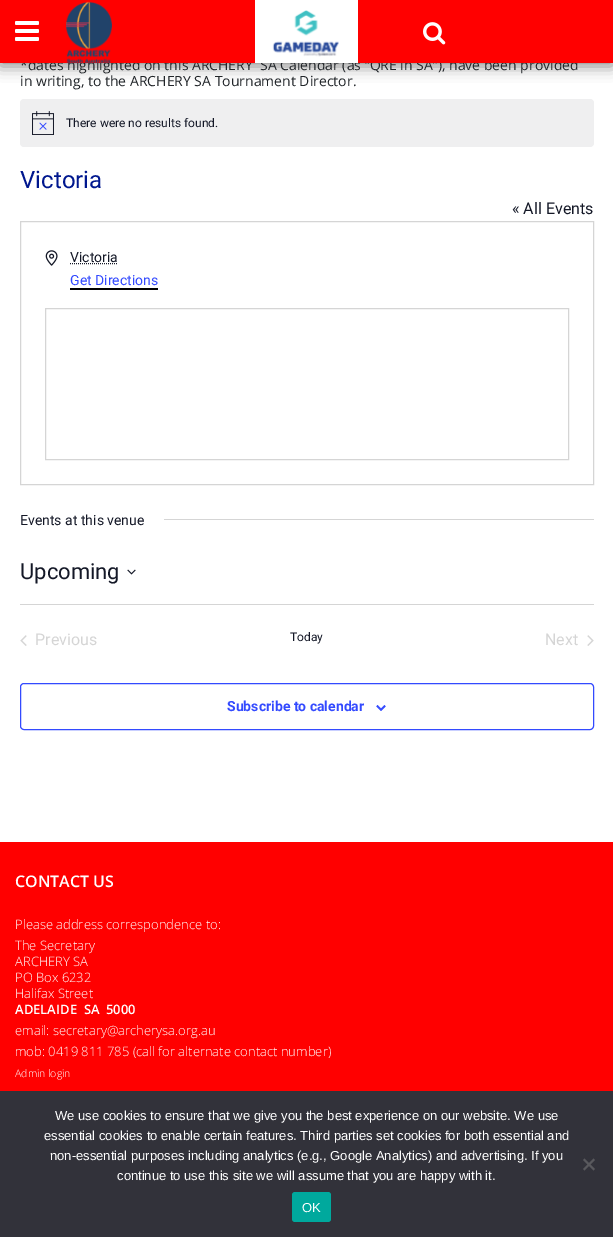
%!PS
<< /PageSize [613 1237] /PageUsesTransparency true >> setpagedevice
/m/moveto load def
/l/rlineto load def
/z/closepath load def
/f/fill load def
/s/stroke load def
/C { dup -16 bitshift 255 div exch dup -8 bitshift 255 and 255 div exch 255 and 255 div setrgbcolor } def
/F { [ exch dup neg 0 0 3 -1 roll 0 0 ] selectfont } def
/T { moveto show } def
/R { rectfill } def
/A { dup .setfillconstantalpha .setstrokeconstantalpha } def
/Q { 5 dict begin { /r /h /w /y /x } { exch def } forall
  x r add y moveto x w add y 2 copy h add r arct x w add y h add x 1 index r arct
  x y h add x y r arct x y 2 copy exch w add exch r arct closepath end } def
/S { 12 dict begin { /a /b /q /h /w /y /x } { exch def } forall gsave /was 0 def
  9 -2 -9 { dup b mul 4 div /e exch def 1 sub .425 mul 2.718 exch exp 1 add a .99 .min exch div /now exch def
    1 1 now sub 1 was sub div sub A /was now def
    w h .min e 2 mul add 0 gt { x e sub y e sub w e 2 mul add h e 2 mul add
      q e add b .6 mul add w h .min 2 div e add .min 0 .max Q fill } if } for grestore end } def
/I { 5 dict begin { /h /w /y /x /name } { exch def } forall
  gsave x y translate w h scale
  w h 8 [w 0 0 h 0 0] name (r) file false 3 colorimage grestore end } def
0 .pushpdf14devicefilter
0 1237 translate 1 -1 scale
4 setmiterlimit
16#FFFFFF C
0 0 613 1237 R
16#333333 C
0 3 613 63 0 7.5 .6 S
/OpenSans-Regular 14 F
16#212529 C
(*dates highlighted on this ARCHERY  SA Calendar \(as “QRE in SA”\), have been provided) 20 70 T
16#FF0000 C
0 0 613 63 R
(1.rgb) 15 21 24 20 I
(2.rgb) 66 1 46 62 I
16#FFFFFF C
255 0 103 63 R
(3.rgb) 272 10 67 47 I
(4.rgb) 423 22 23 23 I
16#212529 C
(in writing, to the ARCHERY SA Tournament Director.) 20 86 T
16#EFEFF0 C
20 99 574 48 4 Q f
(5.rgb) 32 111 22 24 I
/Roboto-Regular 12 F
16#141827 C
(There were no results found.) 66 127 T
/Roboto-Regular 24 F
16#00178E C
(Victoria) 20 188 T
/Roboto-Regular 16 F
16#141827 C
(« All Events) 512 214 T
16#D5D5D5 C
20.5 221.5 573 263 rectstroke
(6.rgb) 45 250 13 16 I
/Roboto-Regular 14 F
16#141827 C
(Victoria) 70 262 T
[1 1] 0 setdash
70 263.5 m 48 0 l s
16#334AFF C
(Get Directions) 70 285 T
16#000000 C
70 288 88 2 R
16#D5D5D5 C
[] 0 setdash
45.5 308.5 523 151 rectstroke
16#141827 C
(Events at this venue) 20 525 T
16#D5D5D5 C
164 519 430 1 R
/Roboto-Regular 22 F
16#141827 C
(Upcoming) 20 579 T
(7.rgb) 127 569 9 6 I
16#D5D5D5 C
20 604 574 1 R
(8.rgb) 20 635 7 11 I
/Roboto-Regular 16 F
(Previous) 35 645 T
/Roboto-Regular 12 F
16#141827 C
(Today) 290 641 T
/Roboto-Regular 16 F
16#D5D5D5 C
(Next) 545 645 T
(9.rgb) 587 635 7 11 I
16#334AFF C
20.5 683.5 573 46 3.5 Q s
/Roboto-Bold 14 F
(Subscribe to calendar) 227 711 T
(10.rgb) 376 705 10 6 I
16#FF0000 C
0 842 613 249 R
/OpenSans-SemiBold 16 F
16#FFFFFF C
(CONTACT US) 15 887 T
/OpenSans-Light 13 F
(Please address correspondence to:) 15 929 T
(The Secretary) 15 950 T
(ARCHERY SA) 15 966 T
(PO Box 6232) 15 982 T
(Halifax Street) 15 998 T
/OpenSans-SemiBold 13 F
(ADELAIDE  SA  5000) 15 1014 T
/OpenSans-Light 13 F
(email: secretary@archerysa.org.au) 15 1035 T
(mob: 0419 811 785 \(call for alternate contact number\)) 15 1056 T
/OpenSans-Light 10.5 F
(Admin login) 15 1077 T
16#32323A C
0 1091 613 146 R
/LiberationSans-Regular 13 F
16#FFFFFF C
(We use cookies to ensure that we give you the best experience on our website. We use) 55 1120 T
(essential cookies to enable certain features. Third parties set cookies for both essential and) 44 1140 T
(non-essential purposes including analytics \(e.g., Google Analytics\) and advertising. If you) 50 1160 T
(continue to use this site we will assume that you are happy with it.) 117 1180 T
16#59595D C
593.5 1158.5 m 1.5 1.5 l -10.5 10.5 l -1.5 -1.5 l z f
583 1160 m 1.5 -1.5 l 10.5 10.5 l -1.5 1.5 l z f
16#00A99D C
292 1192 39 30 3 Q f
16#FFFFFF C
(OK) 302 1212 T
.poppdf14devicefilter showpage
